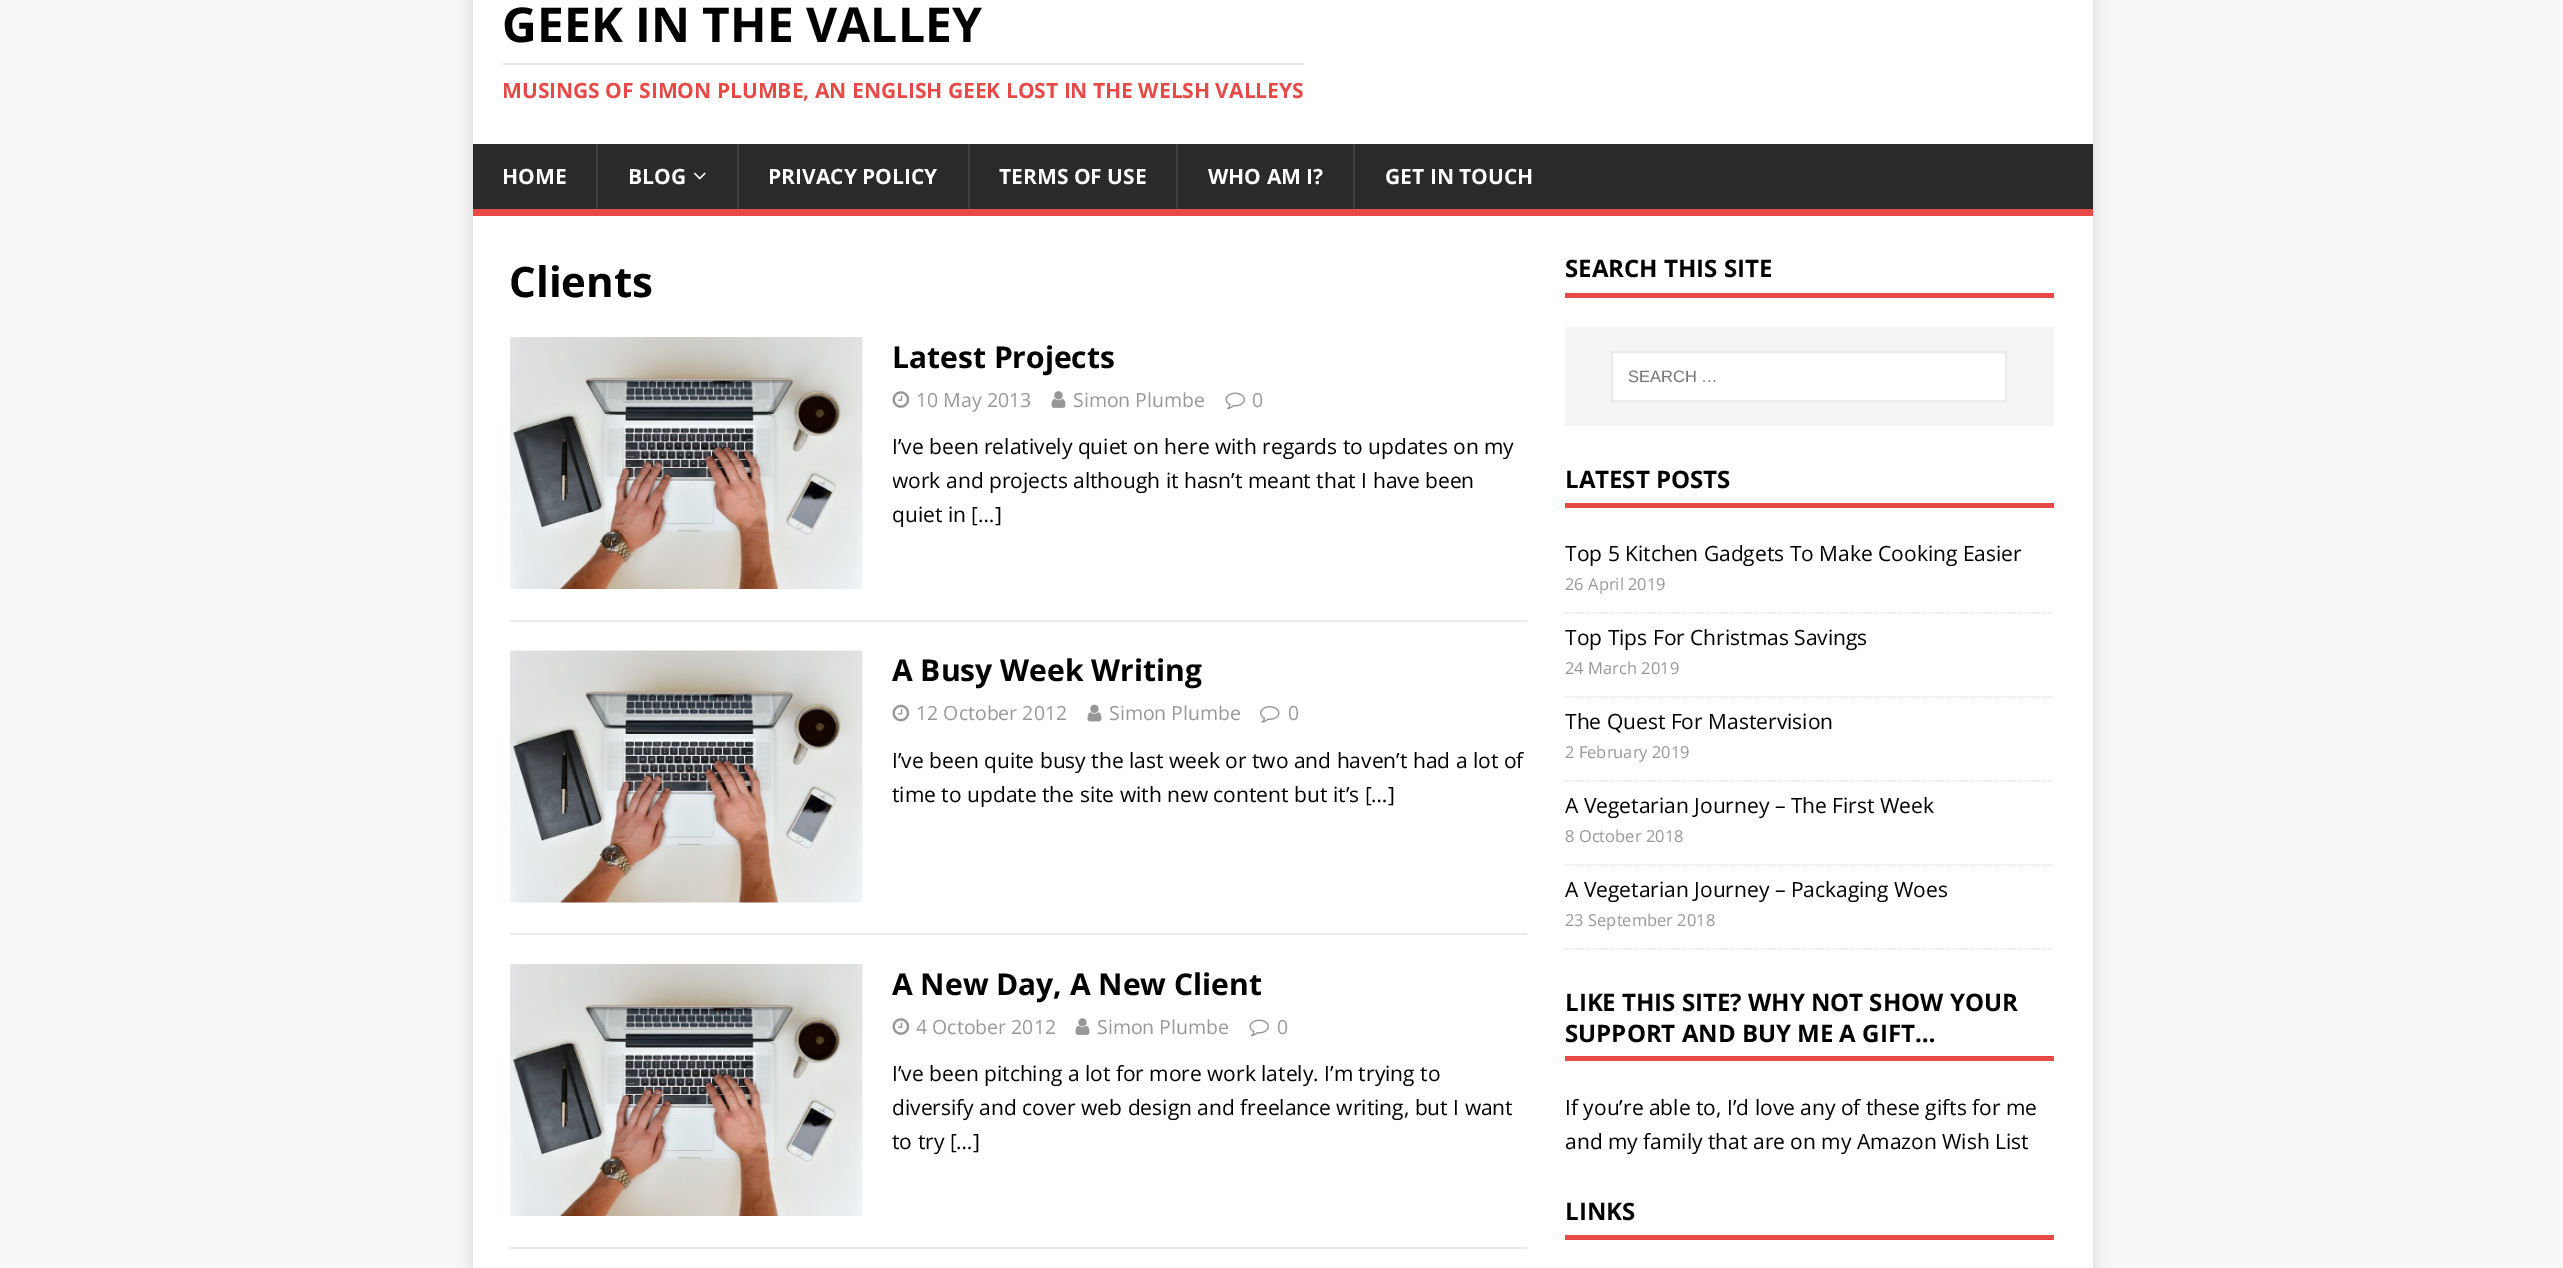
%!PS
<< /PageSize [2563 1268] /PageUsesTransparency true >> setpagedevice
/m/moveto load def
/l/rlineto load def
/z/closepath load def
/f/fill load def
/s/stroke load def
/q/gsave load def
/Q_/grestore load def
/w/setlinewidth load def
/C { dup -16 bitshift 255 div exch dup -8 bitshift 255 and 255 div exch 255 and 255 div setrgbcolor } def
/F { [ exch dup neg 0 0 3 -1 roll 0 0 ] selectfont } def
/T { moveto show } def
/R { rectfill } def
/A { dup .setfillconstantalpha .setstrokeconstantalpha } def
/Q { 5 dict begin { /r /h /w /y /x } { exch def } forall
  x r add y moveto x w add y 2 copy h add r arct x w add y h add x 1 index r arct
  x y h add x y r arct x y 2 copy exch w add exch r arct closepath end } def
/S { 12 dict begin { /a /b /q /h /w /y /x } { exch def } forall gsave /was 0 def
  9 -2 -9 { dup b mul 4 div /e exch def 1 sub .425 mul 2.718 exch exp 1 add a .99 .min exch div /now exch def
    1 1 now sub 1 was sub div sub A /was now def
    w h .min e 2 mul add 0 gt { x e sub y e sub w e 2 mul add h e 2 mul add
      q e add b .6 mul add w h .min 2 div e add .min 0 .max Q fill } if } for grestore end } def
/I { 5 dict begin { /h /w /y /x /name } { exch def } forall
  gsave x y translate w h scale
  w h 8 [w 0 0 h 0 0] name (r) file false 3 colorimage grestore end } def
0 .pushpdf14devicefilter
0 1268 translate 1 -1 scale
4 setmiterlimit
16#F7F7F7 C
0 0 2563 1268 R
16#323232 C
473 -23 1620 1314 0 7.5 .17 S
16#FFFFFF C
473 0 1620 144 R
/OpenSans-Bold 48 F
16#000000 C
(GEEK IN THE VALLEY) 502 42 T
16#E5E5E5 C
503 63 801 2 R
/OpenSans-Bold 21 F
16#E64946 C
(MUSINGS OF SIMON PLUMBE, AN ENGLISH GEEK LOST IN THE WELSH VALLEYS) 502 98 T
16#2A2A2A C
473 144 1620 65 R
16#E64946 C
473 209 1620 7 R
16#FFFFFF C
(HOME) 502 184 T
16#3F3F3F C
596 144 2 65 R
16#FFFFFF C
(BLOG) 628 184 T
(1.rgb) 693 172 13 8 I
16#3F3F3F C
737 144 2 65 R
16#FFFFFF C
(PRIVACY POLICY) 768 184 T
16#3F3F3F C
968 144 2 65 R
16#FFFFFF C
(TERMS OF USE) 999 184 T
16#3F3F3F C
1176 144 2 65 R
16#FFFFFF C
(WHO AM I?) 1208 184 T
16#3F3F3F C
1353 144 2 65 R
16#FFFFFF C
(GET IN TOUCH) 1385 184 T
473 216 1620 1052 R
/OpenSans-Bold 42 F
16#000000 C
(Clients) 509 297 T
16#EBEBEB C
510 620 1017 2 R
(2.rgb) 510 337 353 252 I
/OpenSans-Bold 30 F
16#000000 C
(Latest Projects) 892 368 T
(3.rgb) 892 391 18 17 I
/OpenSans-Regular 19.5 F
16#979797 C
(10 May 2013) 916 407 T
(4.rgb) 1051 391 15 17 I
(Simon Plumbe) 1073 407 T
(5.rgb) 1225 392 20 18 I
(0) 1252 407 T
/OpenSans-Regular 21 F
16#000000 C
(I’ve been relatively quiet on here with regards to updates on my) 892 454 T
q
893 431 634 100 rectclip
(work and projects although it hasn’t meant that I have been) 892 488 T
Q_
(quiet in […]) 892 522 T
16#EBEBEB C
510 933 1017 2 R
(6.rgb) 510 650 353 253 I
/OpenSans-Bold 30 F
16#000000 C
(A Busy Week Writing) 892 681 T
(7.rgb) 892 704 18 18 I
/OpenSans-Regular 19.5 F
16#979797 C
(12 October 2012) 916 720 T
(8.rgb) 1087 704 15 18 I
(Simon Plumbe) 1109 720 T
(9.rgb) 1260 706 20 17 I
(0) 1288 720 T
/OpenSans-Regular 21 F
16#000000 C
(I’ve been quite busy the last week or two and haven’t had a lot of) 892 768 T
(time to update the site with new content but it’s […]) 892 802 T
16#EBEBEB C
510 1247 1017 2 R
(2.rgb) 510 964 353 252 I
/OpenSans-Bold 30 F
16#000000 C
(A New Day, A New Client) 892 995 T
(3.rgb) 892 1018 18 17 I
/OpenSans-Regular 19.5 F
16#979797 C
(4 October 2012) 916 1034 T
(4.rgb) 1075 1018 15 17 I
(Simon Plumbe) 1097 1034 T
(5.rgb) 1249 1019 20 18 I
(0) 1277 1034 T
/OpenSans-Regular 21 F
16#000000 C
(I’ve been pitching a lot for more work lately. I’m trying to) 892 1081 T
(diversify and cover web design and freelance writing, but I want) 892 1115 T
(to try […]) 892 1149 T
16#E64946 C
1565 293 489 5 R
/OpenSans-Bold 24 F
16#000000 C
(SEARCH THIS SITE) 1565 277 T
16#F5F5F5 C
1565 327 489 99 R
16#FFFFFF C
1612 352 m 394 0 l 0 49 l -394 0 l z q f Q_
16#EBEBEB C
2 w
s
/LiberationSans-Regular 16.5 F
16#757575 C
(SEARCH …) 1628 382 T
16#E64946 C
1565 503 489 5 R
/OpenSans-Bold 24 F
16#000000 C
(LATEST POSTS) 1565 488 T
16#E5E5E5 C
1.5 w
[1.5 1.5] 0 setdash
1564.5 613 m 489 0 l s
/OpenSans-Regular 21 F
16#000000 C
(Top 5 Kitchen Gadgets To Make Cooking Easier) 1565 561 T
/OpenSans-Regular 16.5 F
16#979797 C
(26 April 2019) 1565 590 T
16#E5E5E5 C
1564.5 697 m 489 0 l s
/OpenSans-Regular 21 F
16#000000 C
(Top Tips For Christmas Savings) 1565 645 T
/OpenSans-Regular 16.5 F
16#979797 C
(24 March 2019) 1565 674 T
16#E5E5E5 C
1564.5 781 m 489 0 l s
/OpenSans-Regular 21 F
16#000000 C
(The Quest For Mastervision) 1565 729 T
/OpenSans-Regular 16.5 F
16#979797 C
(2 February 2019) 1565 758 T
16#E5E5E5 C
1564.5 865 m 489 0 l s
/OpenSans-Regular 21 F
16#000000 C
(A Vegetarian Journey – The First Week) 1565 813 T
/OpenSans-Regular 16.5 F
16#979797 C
(8 October 2018) 1565 842 T
16#E5E5E5 C
1564.5 949 m 489 0 l s
/OpenSans-Regular 21 F
16#000000 C
(A Vegetarian Journey – Packaging Woes) 1565 897 T
/OpenSans-Regular 16.5 F
16#979797 C
(23 September 2018) 1565 926 T
16#E64946 C
1565 1056 489 5 R
/OpenSans-Bold 24 F
16#000000 C
(LIKE THIS SITE? WHY NOT SHOW YOUR) 1565 1011 T
(SUPPORT AND BUY ME A GIFT…) 1565 1042 T
/OpenSans-Regular 21 F
(If you’re able to, I’d love any of these gifts for me) 1565 1115 T
(and my family that are on my Amazon Wish List) 1565 1149 T
16#E64946 C
1565 1235 489 5 R
/OpenSans-Bold 24 F
16#000000 C
(LINKS) 1565 1220 T
.poppdf14devicefilter showpage
